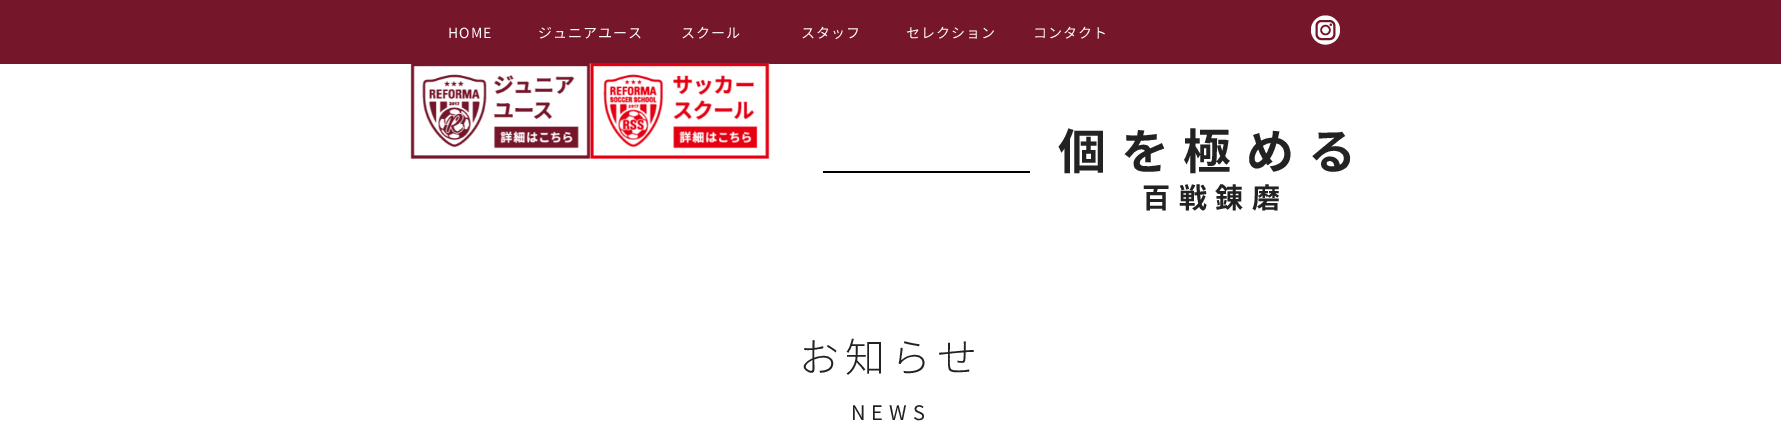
%!PS
<< /PageSize [1781 438] >> setpagedevice
/m/moveto load def
/C { dup -16 bitshift 255 div exch dup -8 bitshift 255 and 255 div exch 255 and 255 div setrgbcolor } def
/F { [ exch dup neg 0 0 3 -1 roll 0 0 ] selectfont } def
/R { rectfill } def
/I { 5 dict begin { /h /w /y /x /name } { exch def } forall
  gsave x y translate w h scale
  w h 8 [w 0 0 h 0 0] name (r) file false 3 colorimage grestore end } def
0 438 translate 1 -1 scale
4 setmiterlimit
16#FFFFFF C
0 0 1781 438 R
16#76162B C
0 0 1781 64 R
/NotoSansJP-Regular 14 F
16#FFFFFF C
448 38 m 1 0 (HOME) ashow
538 38 m 1 0 (ジュニアユース) ashow
681 38 m 1 0 (スクール) ashow
801 38 m 1 0 (スタッフ) ashow
906 38 m 1 0 (セレクション) ashow
1033 38 m 1 0 (コンタクト) ashow
(1.rgb) 1311 15 29 30 I
(2.rgb) 410 64 180 95 I
(3.rgb) 589 63 181 96 I
16#000000 C
823 171 207 2 R
/NotoSansJP-Bold 48 F
16#222222 C
1058 169 m 14.5 0 (個を極める) ashow
/NotoSansJP-Bold 28 F
1142 208 m 8.5 0 (百戦錬磨) ashow
/NotoSansJP-Light 40 F
799 372 m 6 0 (お知らせ) ashow
/NotoSansJP-Regular 20 F
851 420 m 6 0 (NEWS) ashow
showpage
